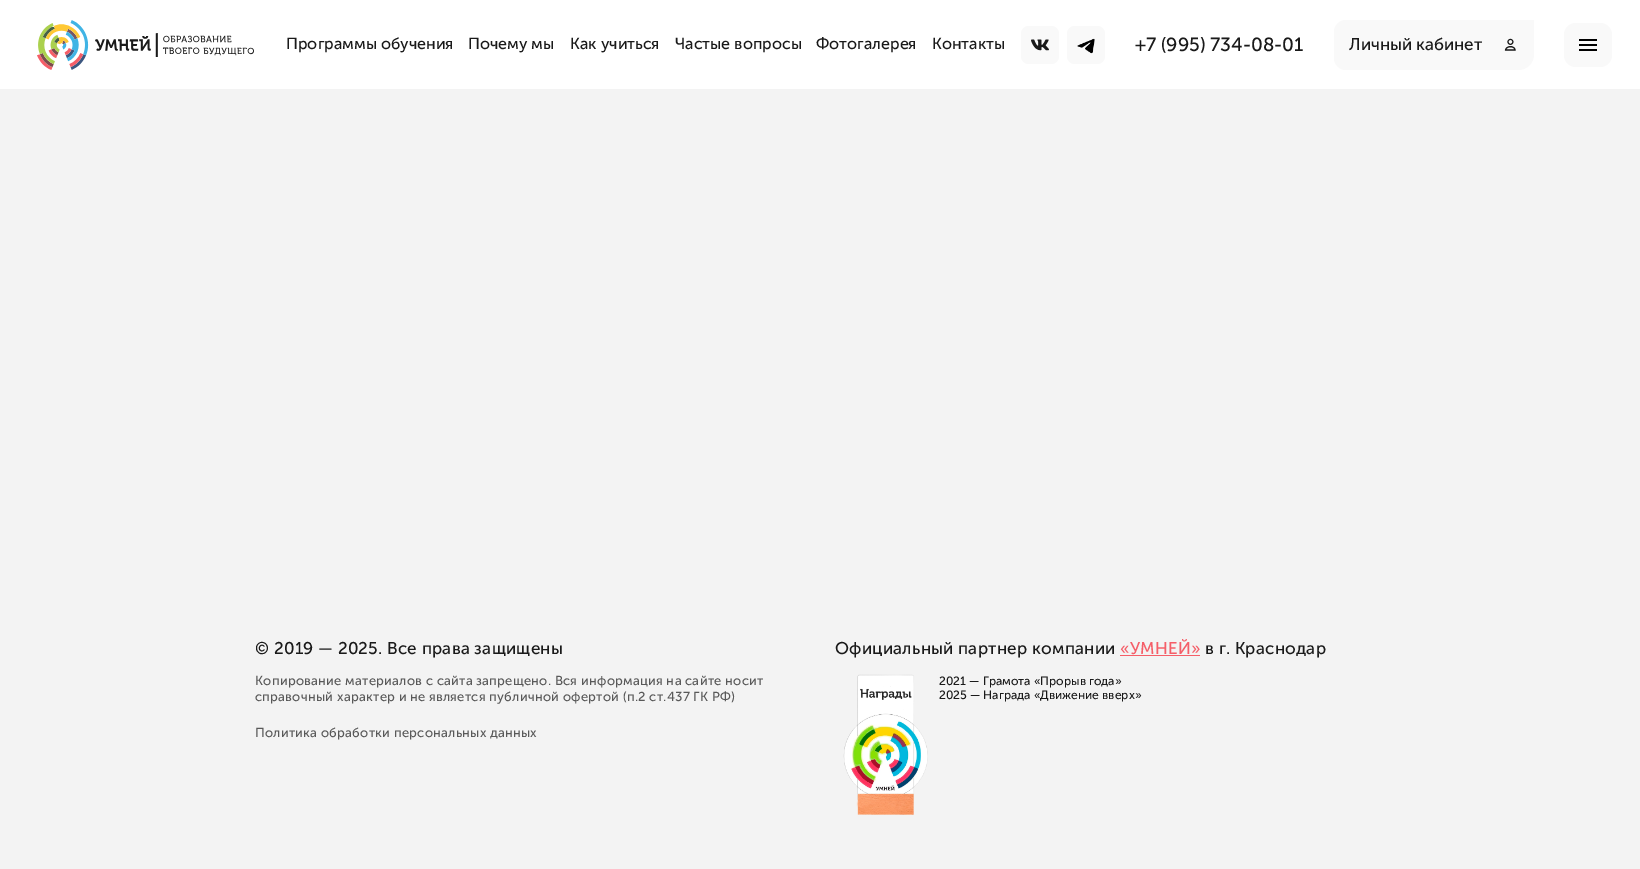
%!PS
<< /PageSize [1640 869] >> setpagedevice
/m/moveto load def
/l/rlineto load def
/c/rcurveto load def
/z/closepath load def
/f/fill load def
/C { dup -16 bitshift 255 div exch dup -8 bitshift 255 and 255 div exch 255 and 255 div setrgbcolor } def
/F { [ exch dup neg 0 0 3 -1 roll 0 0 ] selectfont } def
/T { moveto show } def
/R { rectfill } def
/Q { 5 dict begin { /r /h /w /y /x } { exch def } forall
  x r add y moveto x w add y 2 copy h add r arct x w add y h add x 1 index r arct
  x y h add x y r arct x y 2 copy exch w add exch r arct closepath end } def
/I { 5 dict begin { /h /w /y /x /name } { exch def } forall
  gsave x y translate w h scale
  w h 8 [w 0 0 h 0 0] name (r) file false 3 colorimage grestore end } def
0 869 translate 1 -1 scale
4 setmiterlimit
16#F3F3F3 C
0 0 1640 869 R
16#FFFFFF C
0 0 1640 89 R
(1.rgb) 37 20 217 50 I
/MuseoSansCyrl-Regular 16 F
16#1A1A1A C
(Программы обучения) 286 49 T
(Почему мы) 468 49 T
(Как учиться) 570 49 T
(Частые вопросы) 675 49 T
(Фотогалерея) 816 49 T
(Контакты) 932 49 T
16#F9F9F9 C
1021 26 38 38 8 Q f
(2.rgb) 1031 39 18 12 I
1067 26 38 38 8 Q f
(3.rgb) 1077 38 18 16 I
/MuseoSansCyrl-Regular 19 F
16#1A1A1A C
(+7 \(995\) 734-08-01) 1135 51 T
16#F9F9F9 C
1346 20 m 188 0 l 0 34 l 0 9 -7 16 -16 16 c -172 0 l -6.5 0 -12 -5.5 -12 -12 c 0 -26 l 0 -6.5 5.5 -12 12 -12 c z f
/MuseoSansCyrl-Regular 17 F
16#1A1A1A C
(Личный кабинет) 1349 50 T
(4.rgb) 1504 38 12 13 I
16#F9F9F9 C
1564 23 48 44 12 Q f
(5.rgb) 1579 39 18 12 I
16#1A1A1A C
255 654 m .25 0 (© 2019 — 2025. Все права защищены) ashow
/MuseoSansCyrl-Regular 13 F
16#595959 C
255 685 m .25 0 (Копирование материалов с сайта запрещено. Вся информация на сайте носит) ashow
255 701 m .25 0 (справочный характер и не является публичной офертой \(п.2 ст.437 ГК РФ\)) ashow
255 737 m .25 0 (Политика обработки персональных данных) ashow
/MuseoSansCyrl-Regular 17 F
16#1A1A1A C
835 654 m .25 0 (Официальный партнер компании) ashow
16#F55E68 C
1120 654 m .25 0 («УМНЕЙ») ashow
1120 655 80 1 R
16#1A1A1A C
1205 654 m .25 0 (в г. Краснодар) ashow
(6.rgb) 843 674 85 141 I
/MuseoSansCyrl-Regular 12 F
(2021 — Грамота «Прорыв года») 939 685 T
(2025 — Награда «Движение вверх») 939 699 T
showpage
